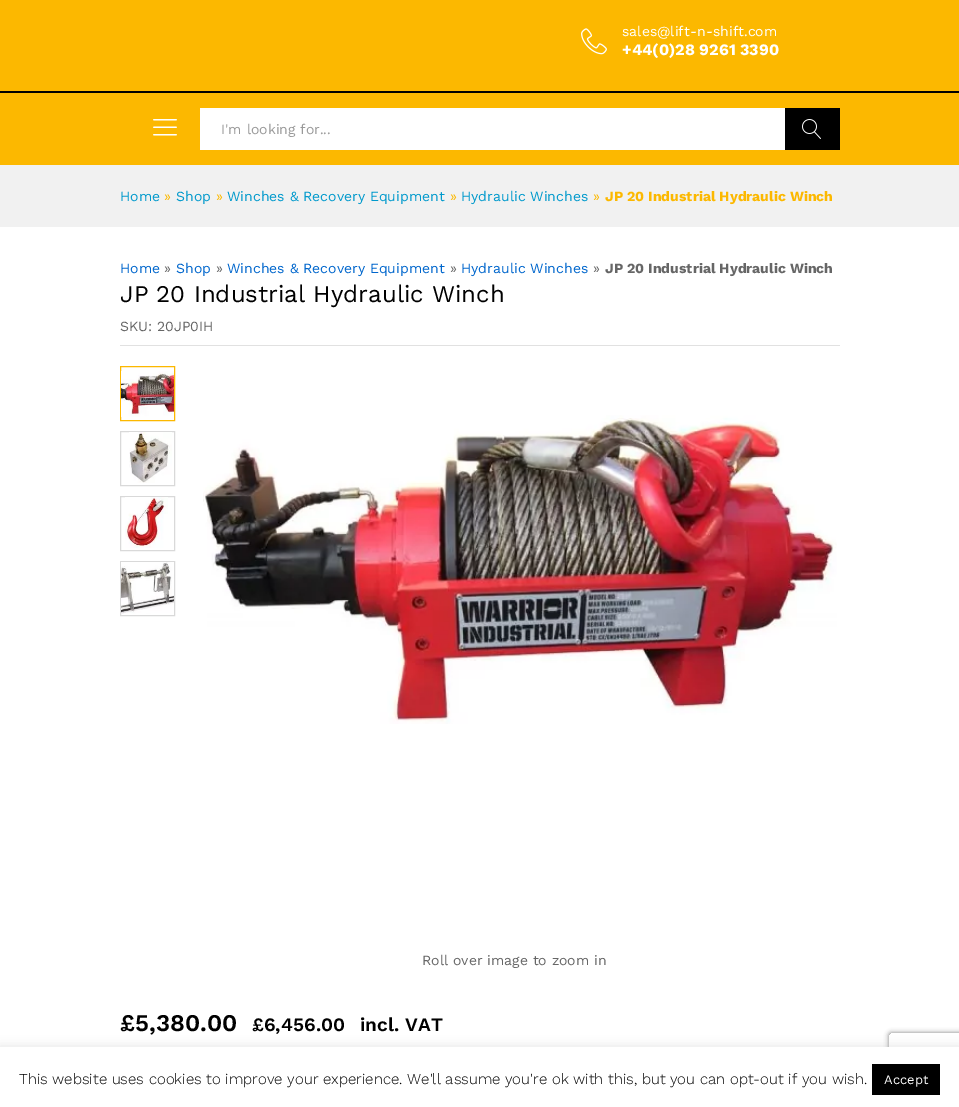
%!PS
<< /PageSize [959 1107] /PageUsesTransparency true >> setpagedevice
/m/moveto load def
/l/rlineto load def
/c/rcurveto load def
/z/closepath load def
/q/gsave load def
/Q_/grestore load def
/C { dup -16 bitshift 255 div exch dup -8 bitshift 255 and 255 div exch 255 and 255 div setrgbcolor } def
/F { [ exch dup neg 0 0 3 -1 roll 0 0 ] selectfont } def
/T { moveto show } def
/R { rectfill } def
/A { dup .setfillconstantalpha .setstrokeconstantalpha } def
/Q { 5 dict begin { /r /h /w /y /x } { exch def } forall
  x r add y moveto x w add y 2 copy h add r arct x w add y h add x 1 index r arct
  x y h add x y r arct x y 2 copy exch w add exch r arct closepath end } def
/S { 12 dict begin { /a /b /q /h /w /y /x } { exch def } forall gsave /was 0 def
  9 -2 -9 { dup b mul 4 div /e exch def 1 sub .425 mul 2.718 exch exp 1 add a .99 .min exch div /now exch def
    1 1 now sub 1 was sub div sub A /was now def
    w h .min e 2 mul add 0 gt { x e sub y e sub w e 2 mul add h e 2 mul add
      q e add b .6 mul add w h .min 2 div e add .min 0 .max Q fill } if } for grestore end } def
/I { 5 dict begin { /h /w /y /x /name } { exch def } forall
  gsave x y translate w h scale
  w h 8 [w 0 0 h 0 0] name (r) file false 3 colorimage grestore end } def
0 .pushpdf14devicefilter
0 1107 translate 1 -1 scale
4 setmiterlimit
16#FFFFFF C
0 0 959 1107 R
16#FCB800 C
0 0 959 165 R
16#000000 C
0 91 959 2 R
(1.rgb) 581 28 26 27 I
/WorkSans-Regular 14 F
16#FFFFFF C
(sales@lift-n-shift.com) 622 36 T
/WorkSans-Bold 16 F
(+44\(0\)28 9261 3390) 622 55 T
(2.rgb) 153 119 24 17 I
200 108 585 42 R
/WorkSans-Regular 14 F
16#999999 C
(I'm looking for...) 221 134 T
16#000000 C
785 108 55 42 R
(3.rgb) 802 119 19 20 I
16#F1F1F1 C
0 165 959 62 R
16#0099CC C
(Home) 120 201 T
16#FCB800 C
(») 164 201 T
16#0099CC C
(Shop) 176 201 T
16#FCB800 C
(») 216 201 T
16#0099CC C
(Winches & Recovery Equipment) 227 201 T
16#FCB800 C
(») 450 201 T
16#0099CC C
(Hydraulic Winches) 461 201 T
16#FCB800 C
(») 593 201 T
/WorkSans-Bold 14 F
(JP 20 Industrial Hydraulic Winch) 605 201 T
/WorkSans-Regular 14 F
16#0066CC C
(Home) 120 273 T
16#666666 C
(») 164 273 T
16#0066CC C
(Shop) 176 273 T
16#666666 C
(») 216 273 T
16#0066CC C
(Winches & Recovery Equipment) 227 273 T
16#666666 C
(») 450 273 T
16#0066CC C
(Hydraulic Winches) 461 273 T
16#666666 C
(») 593 273 T
/WorkSans-Bold 14 F
(JP 20 Industrial Hydraulic Winch) 605 273 T
16#E1E1E1 C
120 345 720 1 R
/WorkSans-Regular 24 F
16#000000 C
(JP 20 Industrial Hydraulic Winch) 120 302 T
/WorkSans-Regular 14 F
16#666666 C
(SKU: 20JP0IH) 120 331 T
16#FCB800 C
120.5 366.5 54 54 rectstroke
(4.rgb) 121 371 53 46 I
16#D9D9D9 C
120.5 431.5 54 54 rectstroke
(5.rgb) 129 432 43 51 I
120.5 496.5 54 54 rectstroke
(6.rgb) 125 497 43 51 I
120.5 561.5 54 54 rectstroke
(7.rgb) 121 562 53 52 I
(8.rgb) 203 415 634 309 I
16#666666 C
(Roll over image to zoom in) 422 965 T
/WorkSans-SemiBold 24 F
16#000000 C
(£5,380.00) 120 1031 T
/WorkSans-SemiBold 19 F
(£6,456.00) 252 1031 T
(incl. VAT) 360 1031 T
q
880 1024 m 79 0 l 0 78 l -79 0 l z 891 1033 m 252 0 l 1 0 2 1 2 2 c 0 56 l 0 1 -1 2 -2 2 c -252 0 l -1 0 -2 -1 -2 -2 c 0 -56 l 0 -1 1 -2 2 -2 c z eoclip newpath
16#808080 C
889 1033 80 60 2 2.5 1 S
Q_
16#ACABAB C
0 1046 959 60 0 5 .3 S
16#FFFFFF C
0 1047 959 60 R
/WorkSans-Light 15 F
16#000000 C
(This website uses cookies to improve your experience. We'll assume you're ok with this, but you can opt-out if you wish.) 19 1084 T
872 1064 68 31 R
/WorkSans-Regular 13 F
16#FFFFFF C
(Accept) 884 1084 T
.poppdf14devicefilter showpage
